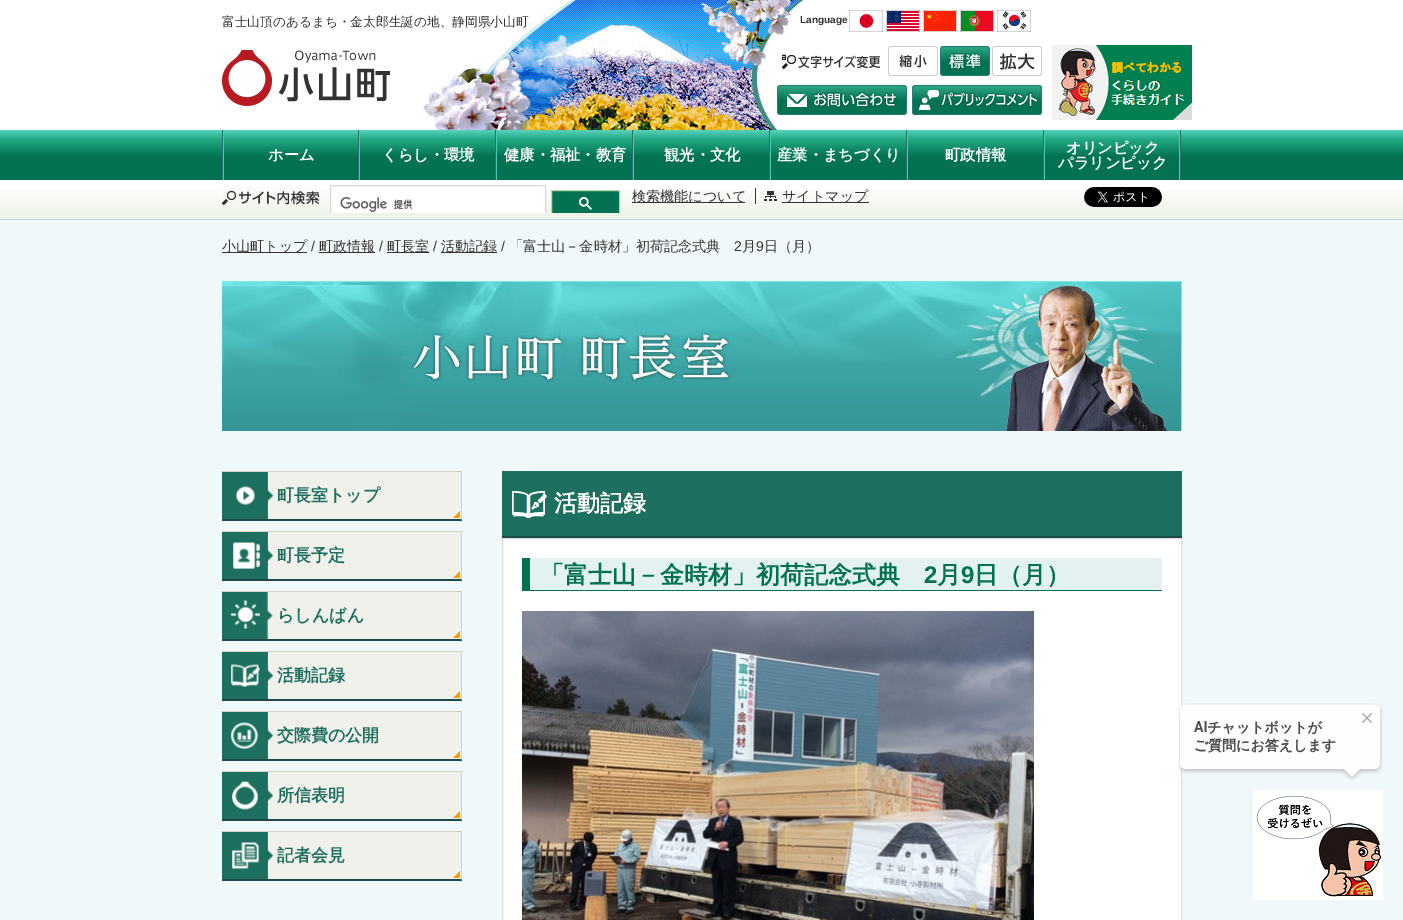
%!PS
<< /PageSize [1403 920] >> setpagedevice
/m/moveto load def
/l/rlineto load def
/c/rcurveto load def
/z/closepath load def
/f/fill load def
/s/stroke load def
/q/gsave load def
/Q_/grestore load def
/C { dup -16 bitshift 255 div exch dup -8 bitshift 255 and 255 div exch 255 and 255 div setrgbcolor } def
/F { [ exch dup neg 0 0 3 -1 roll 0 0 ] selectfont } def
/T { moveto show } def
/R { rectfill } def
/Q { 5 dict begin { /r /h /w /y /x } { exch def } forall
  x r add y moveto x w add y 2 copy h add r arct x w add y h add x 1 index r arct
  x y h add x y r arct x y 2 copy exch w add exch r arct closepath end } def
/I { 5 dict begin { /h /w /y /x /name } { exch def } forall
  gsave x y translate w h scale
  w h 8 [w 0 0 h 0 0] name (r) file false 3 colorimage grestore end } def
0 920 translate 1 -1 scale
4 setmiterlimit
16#F1F8FA C
0 0 1403 920 R
16#FFFFFF C
0 0 1403 190 R
(1.rgb) 423 0 380 130 I
/WenQuanYiZenHei-Medium 12.7 F
16#333333 C
(富士山頂のあるまち・金太郎生誕の地、静岡県小山町) 222 26 T
/LiberationSans-Bold 10 F
(Language) 800 23 T
(2.rgb) 849 10 34 22 I
(3.rgb) 886 10 34 22 I
(4.rgb) 923 10 34 22 I
(5.rgb) 960 10 34 22 I
(6.rgb) 997 10 34 22 I
(7.rgb) 222 50 168 56 I
(8.rgb) 782 54 98 15 I
(9.rgb) 888 46 50 30 I
(10.rgb) 940 46 50 30 I
(11.rgb) 992 46 50 30 I
(12.rgb) 1052 45 140 75 I
(13.rgb) 777 85 130 30 I
(14.rgb) 912 85 130 30 I
q 0 130 m 1403 0 l 0 50 l -1403 0 l z clip newpath
<< /ShadingType 2 /ColorSpace /DeviceRGB /Coords [702 130 702 180] /Extend [true true] /Function << /FunctionType 3 /Domain [0 1] /Functions [<< /FunctionType 2 /Domain [0 1] /C0 [.345 .827 .733] /C1 [.133 .659 .514] /N 1 >> << /FunctionType 2 /Domain [0 1] /C0 [.133 .659 .514] /C1 [.008 .447 .325] /N 1 >> << /FunctionType 2 /Domain [0 1] /C0 [.008 .447 .325] /C1 [.008 .447 .325] /N 1 >>] /Bounds [.19 .53] /Encode [0 1 0 1 0 1] >> >> shfill Q_
16#4DCAB0 C
223 130 1 50 R
16#286F6F C
222 130 1 50 R
/WenQuanYiZenHei-Bold 15.25 F
16#FFFFFF C
(ホーム) 268 160 T
16#4DCAB0 C
359 130 1 50 R
16#286F6F C
358 130 1 50 R
16#FFFFFF C
(くらし・環境) 382 160 T
16#4DCAB0 C
496 130 1 50 R
16#286F6F C
495 130 1 50 R
16#FFFFFF C
(健康・福祉・教育) 504 160 T
16#4DCAB0 C
633 130 1 50 R
16#286F6F C
632 130 1 50 R
16#FFFFFF C
(観光・文化) 664 160 T
16#4DCAB0 C
770 130 1 50 R
16#286F6F C
769 130 1 50 R
16#FFFFFF C
(産業・まちづくり) 777 160 T
16#4DCAB0 C
907 130 1 50 R
16#286F6F C
906 130 1 50 R
16#FFFFFF C
(町政情報) 945 160 T
16#4DCAB0 C
1179 130 1 50 R
1044 130 1 50 R
16#286F6F C
1180 130 1 50 R
1043 130 1 50 R
16#FFFFFF C
(オリンピック) 1066 153 T
(パラリンピック) 1058 168 T
(15.rgb) 0 190 1403 29 I
16#C0DCD6 C
0 219 1403 1 R
(16.rgb) 222 186 98 19 I
16#FFFFFF C
331 190 214 23 R
q
222 185 400 28 rectclip
16#D9D9D9 C
330.5 185.5 215 36 rectstroke
Q_
(17.rgb) 340 197 73 15 I
16#037252 C
553 190 m 65 0 l 1 0 2 1 2 2 c 0 21 l -69 0 l 0 -21 l 0 -1 1 -2 2 -2 c z f
q
222 185 400 28 rectclip
16#B6D7A8 C
551.5 190.5 68 26 1.5 Q s
Q_
(18.rgb) 579 197 13 13 I
16#333333 C
632 202 113 1 R
/WenQuanYiZenHei-Medium 14.1 F
(検索機能について) 632 201 T
(19.rgb) 764 191 13 10 I
782 202 87 1 R
(サイトマップ) 782 201 T
755 188 1 16 R
(20.rgb) 1084 187 78 20 I
222 252 85 1 R
(小山町トップ) 222 251 T
/LiberationSans-Regular 14.1 F
(/) 311 251 T
319 252 56 1 R
/WenQuanYiZenHei-Medium 14.1 F
(町政情報) 319 251 T
/LiberationSans-Regular 14.1 F
(/) 379 251 T
387 252 42 1 R
/WenQuanYiZenHei-Medium 14.1 F
(町長室) 387 251 T
/LiberationSans-Regular 14.1 F
(/) 433 251 T
441 252 56 1 R
/WenQuanYiZenHei-Medium 14.1 F
(活動記録) 441 251 T
/LiberationSans-Regular 14.1 F
(/) 501 251 T
/WenQuanYiZenHei-Medium 14.1 F
(「富士山－金時材」初荷記念式典) 509 251 T
/LiberationSans-Regular 14.1 F
(2) 734 251 T
/WenQuanYiZenHei-Medium 14.1 F
(月) 742 251 T
/LiberationSans-Regular 14.1 F
(9) 756 251 T
/WenQuanYiZenHei-Medium 14.1 F
(日（月）) 764 251 T
(21.rgb) 222 281 960 150 I
16#F0F1EB C
267 472 195 49 R
(22.rgb) 453 511 7 7 I
16#D0D3C0 C
222 471 240 1 R
462 471 m 0 50 l -1 -2 l 0 -47 l z f
16#1C4A4A C
462 521 m -240 0 l 0 -2 l 239 0 l z f
(23.rgb) 222 472 51 47 I
/WenQuanYiZenHei-Bold 17 F
16#1D705F C
(町長室トップ) 277 501 T
16#F0F1EB C
267 532 195 49 R
(22.rgb) 453 571 7 7 I
16#D0D3C0 C
222 531 240 1 R
462 531 m 0 50 l -1 -2 l 0 -47 l z f
16#1C4A4A C
462 581 m -240 0 l 0 -2 l 239 0 l z f
(24.rgb) 222 532 51 47 I
16#1D705F C
(町長予定) 277 561 T
16#F0F1EB C
266 592 196 49 R
(22.rgb) 453 631 7 7 I
16#D0D3C0 C
222 591 240 1 R
462 591 m 0 50 l -1 -2 l 0 -47 l z f
16#1C4A4A C
462 641 m -240 0 l 0 -2 l 239 0 l z f
(25.rgb) 222 592 51 47 I
16#1D705F C
(らしんばん) 277 621 T
16#F0F1EB C
267 652 195 49 R
(22.rgb) 453 691 7 7 I
16#D0D3C0 C
222 651 240 1 R
462 651 m 0 50 l -1 -2 l 0 -47 l z f
16#1C4A4A C
462 701 m -240 0 l 0 -2 l 239 0 l z f
(26.rgb) 222 652 51 47 I
16#1D705F C
(活動記録) 277 681 T
16#F0F1EB C
267 712 195 49 R
(22.rgb) 453 751 7 7 I
16#D0D3C0 C
222 711 240 1 R
462 711 m 0 50 l -1 -2 l 0 -47 l z f
16#1C4A4A C
462 761 m -240 0 l 0 -2 l 239 0 l z f
(27.rgb) 222 712 51 47 I
16#1D705F C
(交際費の公開) 277 741 T
16#F0F1EB C
267 772 195 49 R
(22.rgb) 453 811 7 7 I
16#D0D3C0 C
222 771 240 1 R
462 771 m 0 50 l -1 -2 l 0 -47 l z f
16#1C4A4A C
462 821 m -240 0 l 0 -2 l 239 0 l z f
(28.rgb) 222 772 51 47 I
16#1D705F C
(所信表明) 277 801 T
16#F0F1EB C
267 832 195 49 R
(22.rgb) 453 871 7 7 I
16#D0D3C0 C
222 831 240 1 R
462 831 m 0 50 l -1 -2 l 0 -47 l z f
16#1C4A4A C
462 881 m -240 0 l 0 -2 l 239 0 l z f
(29.rgb) 222 832 51 47 I
16#1D705F C
(記者会見) 277 861 T
502 471 680 65 R
(30.rgb) 512 491 35 27 I
16#1C4A4A C
502 536 680 2 R
/WenQuanYiZenHei-Bold 23 F
16#FFFFFF C
(活動記録) 554 511 T
502.5 538.5 m 679 0 l 0 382 l -679 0 l z q f Q_
16#DDDDDD C
s
16#E4F1F1 C
530 558 632 32 R
16#027253 C
522 590 640 1 R
522 558 8 33 R
/WenQuanYiZenHei-Bold 24 F
16#007252 C
(「富士山－金時材」初荷記念式典) 540 583 T
/LiberationSans-Bold 24 F
(2) 924 583 T
/WenQuanYiZenHei-Bold 24 F
(月) 937 583 T
/LiberationSans-Bold 24 F
(9) 961 583 T
/WenQuanYiZenHei-Bold 24 F
(日（月）) 974 583 T
(31.rgb) 522 611 512 309 I
(32.rgb) 1179 703 204 77 I
(33.rgb) 1253 790 130 110 I
showpage
